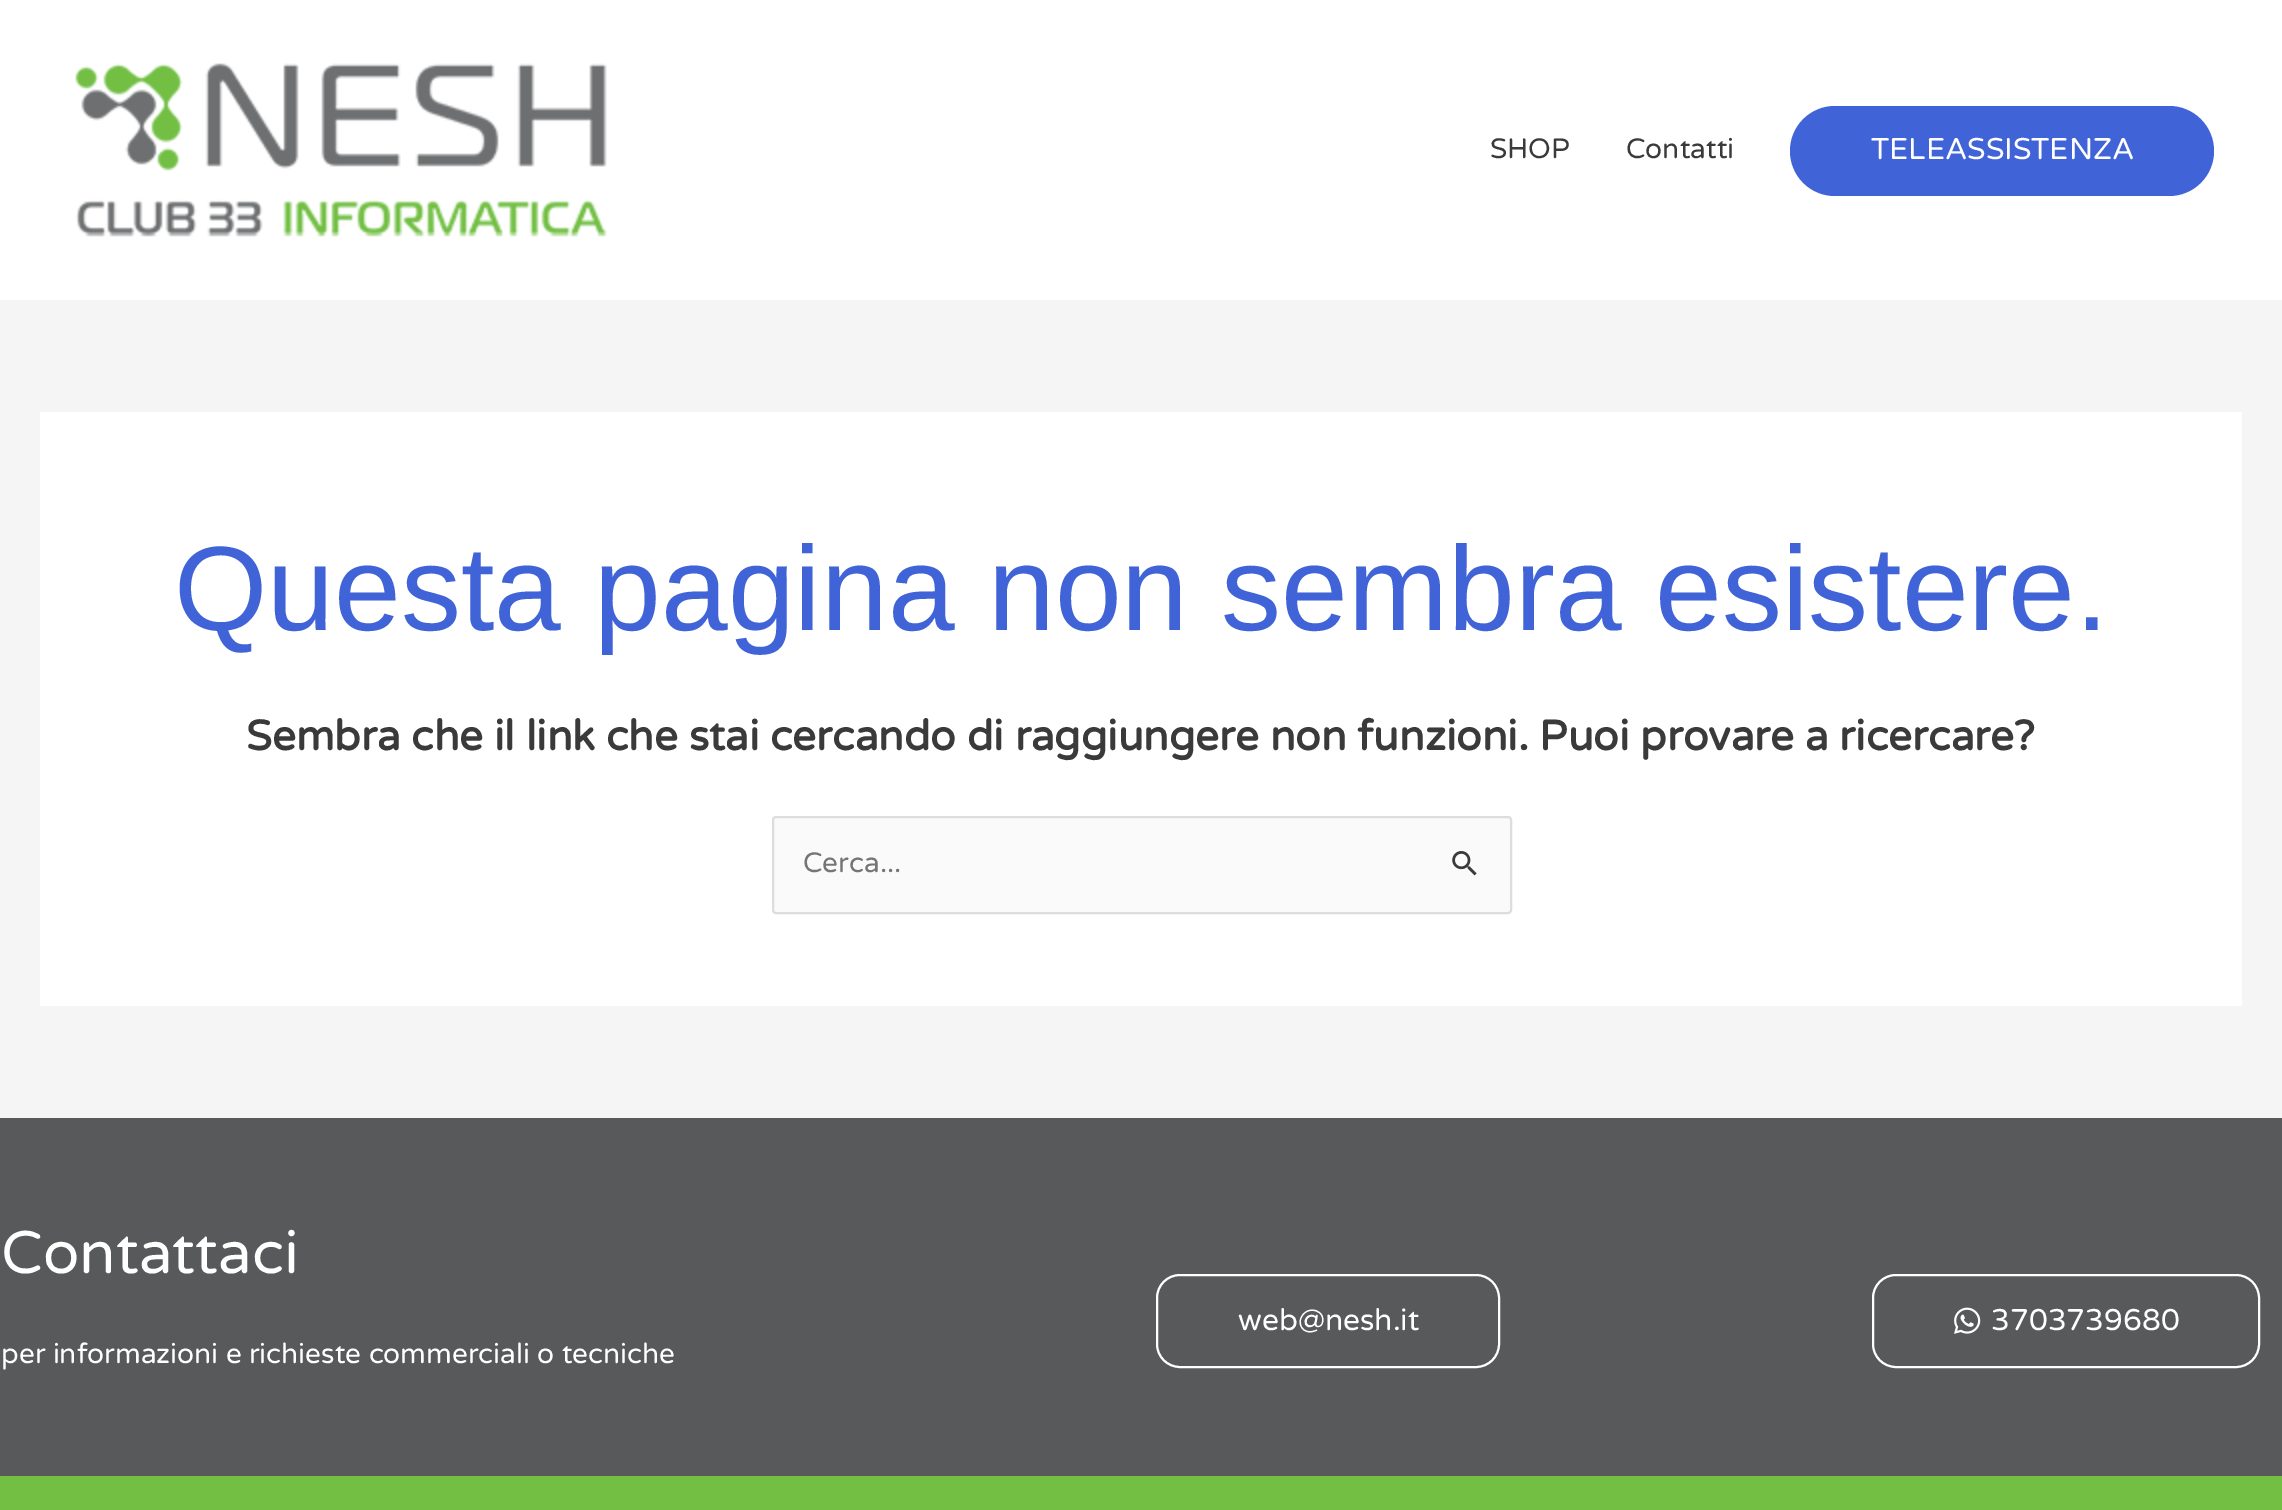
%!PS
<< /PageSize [2282 1510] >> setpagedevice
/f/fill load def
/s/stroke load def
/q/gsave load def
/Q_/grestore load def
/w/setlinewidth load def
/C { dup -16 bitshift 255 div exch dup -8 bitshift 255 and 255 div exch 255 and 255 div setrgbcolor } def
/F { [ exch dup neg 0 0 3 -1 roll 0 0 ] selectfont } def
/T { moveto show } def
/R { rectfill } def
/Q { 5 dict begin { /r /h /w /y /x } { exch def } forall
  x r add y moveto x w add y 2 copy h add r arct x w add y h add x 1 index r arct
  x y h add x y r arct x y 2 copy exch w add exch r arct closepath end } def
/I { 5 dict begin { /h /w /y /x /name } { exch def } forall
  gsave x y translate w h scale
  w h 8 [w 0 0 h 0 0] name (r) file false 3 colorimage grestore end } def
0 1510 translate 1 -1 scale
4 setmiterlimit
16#F5F5F5 C
0 0 2282 1510 R
16#FFFFFF C
0 0 2282 300 R
(1.rgb) 75 63 532 174 I
/VarelaRound-Regular 28 F
16#3A3A3A C
(SHOP) 1490 158 T
(Contatti) 1626 158 T
16#4064D7 C
1790 106 424 90 45 Q f
/VarelaRound-Regular 30 F
16#FFFFFF C
(TELEASSISTENZA) 1871 159 T
40 412 2202 594 R
/LiberationSans-Regular 120 F
16#4064D7 C
(Questa pagina non sembra esistere.) 174 630 T
/VarelaRound-Bold 42 F
16#3A3A3A C
(Sembra che il link che stai cercando di raggiungere non funzioni. Puoi provare a ricercare?) 246 750 T
16#FAFAFA C
773 817 738 96 3 Q q f Q_
16#DDDDDD C
2 w
s
/VarelaRound-Regular 28 F
16#757575 C
(Cerca...) 803 872 T
(2.rgb) 1452 851 25 25 I
16#57595A C
0 1118 2282 358 R
/VarelaRound-Regular 60 F
16#FFFFFF C
(Contattaci) 1 1273 T
/VarelaRound-Regular 28 F
(per informazioni e richieste commerciali o tecniche) 1 1363 T
1157 1275 342 92 23 Q s
/VarelaRound-Regular 30 F
(web@nesh.it) 1238 1330 T
1873 1275 386 92 23 Q s
(3.rgb) 1954 1307 27 27 I
(3703739680) 1991 1330 T
16#72BF44 C
0 1476 2282 34 R
showpage
